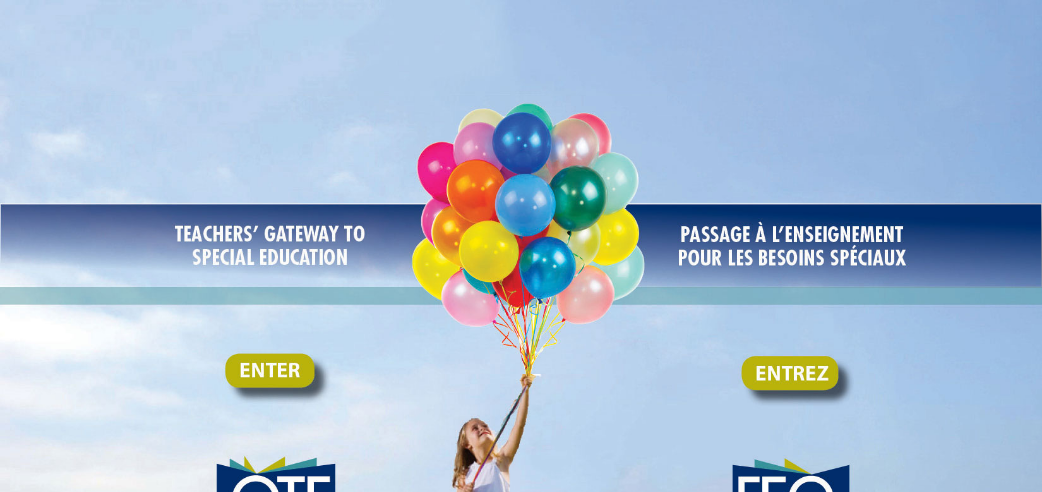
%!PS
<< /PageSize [1042 492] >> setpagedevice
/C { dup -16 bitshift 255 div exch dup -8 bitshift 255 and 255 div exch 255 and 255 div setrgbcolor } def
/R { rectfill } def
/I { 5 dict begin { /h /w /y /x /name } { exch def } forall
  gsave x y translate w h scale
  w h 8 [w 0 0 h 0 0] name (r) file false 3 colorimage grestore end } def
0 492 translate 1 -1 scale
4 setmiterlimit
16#FFFFFF C
0 0 1042 492 R
(1.rgb) 0 0 1042 492 I
showpage
